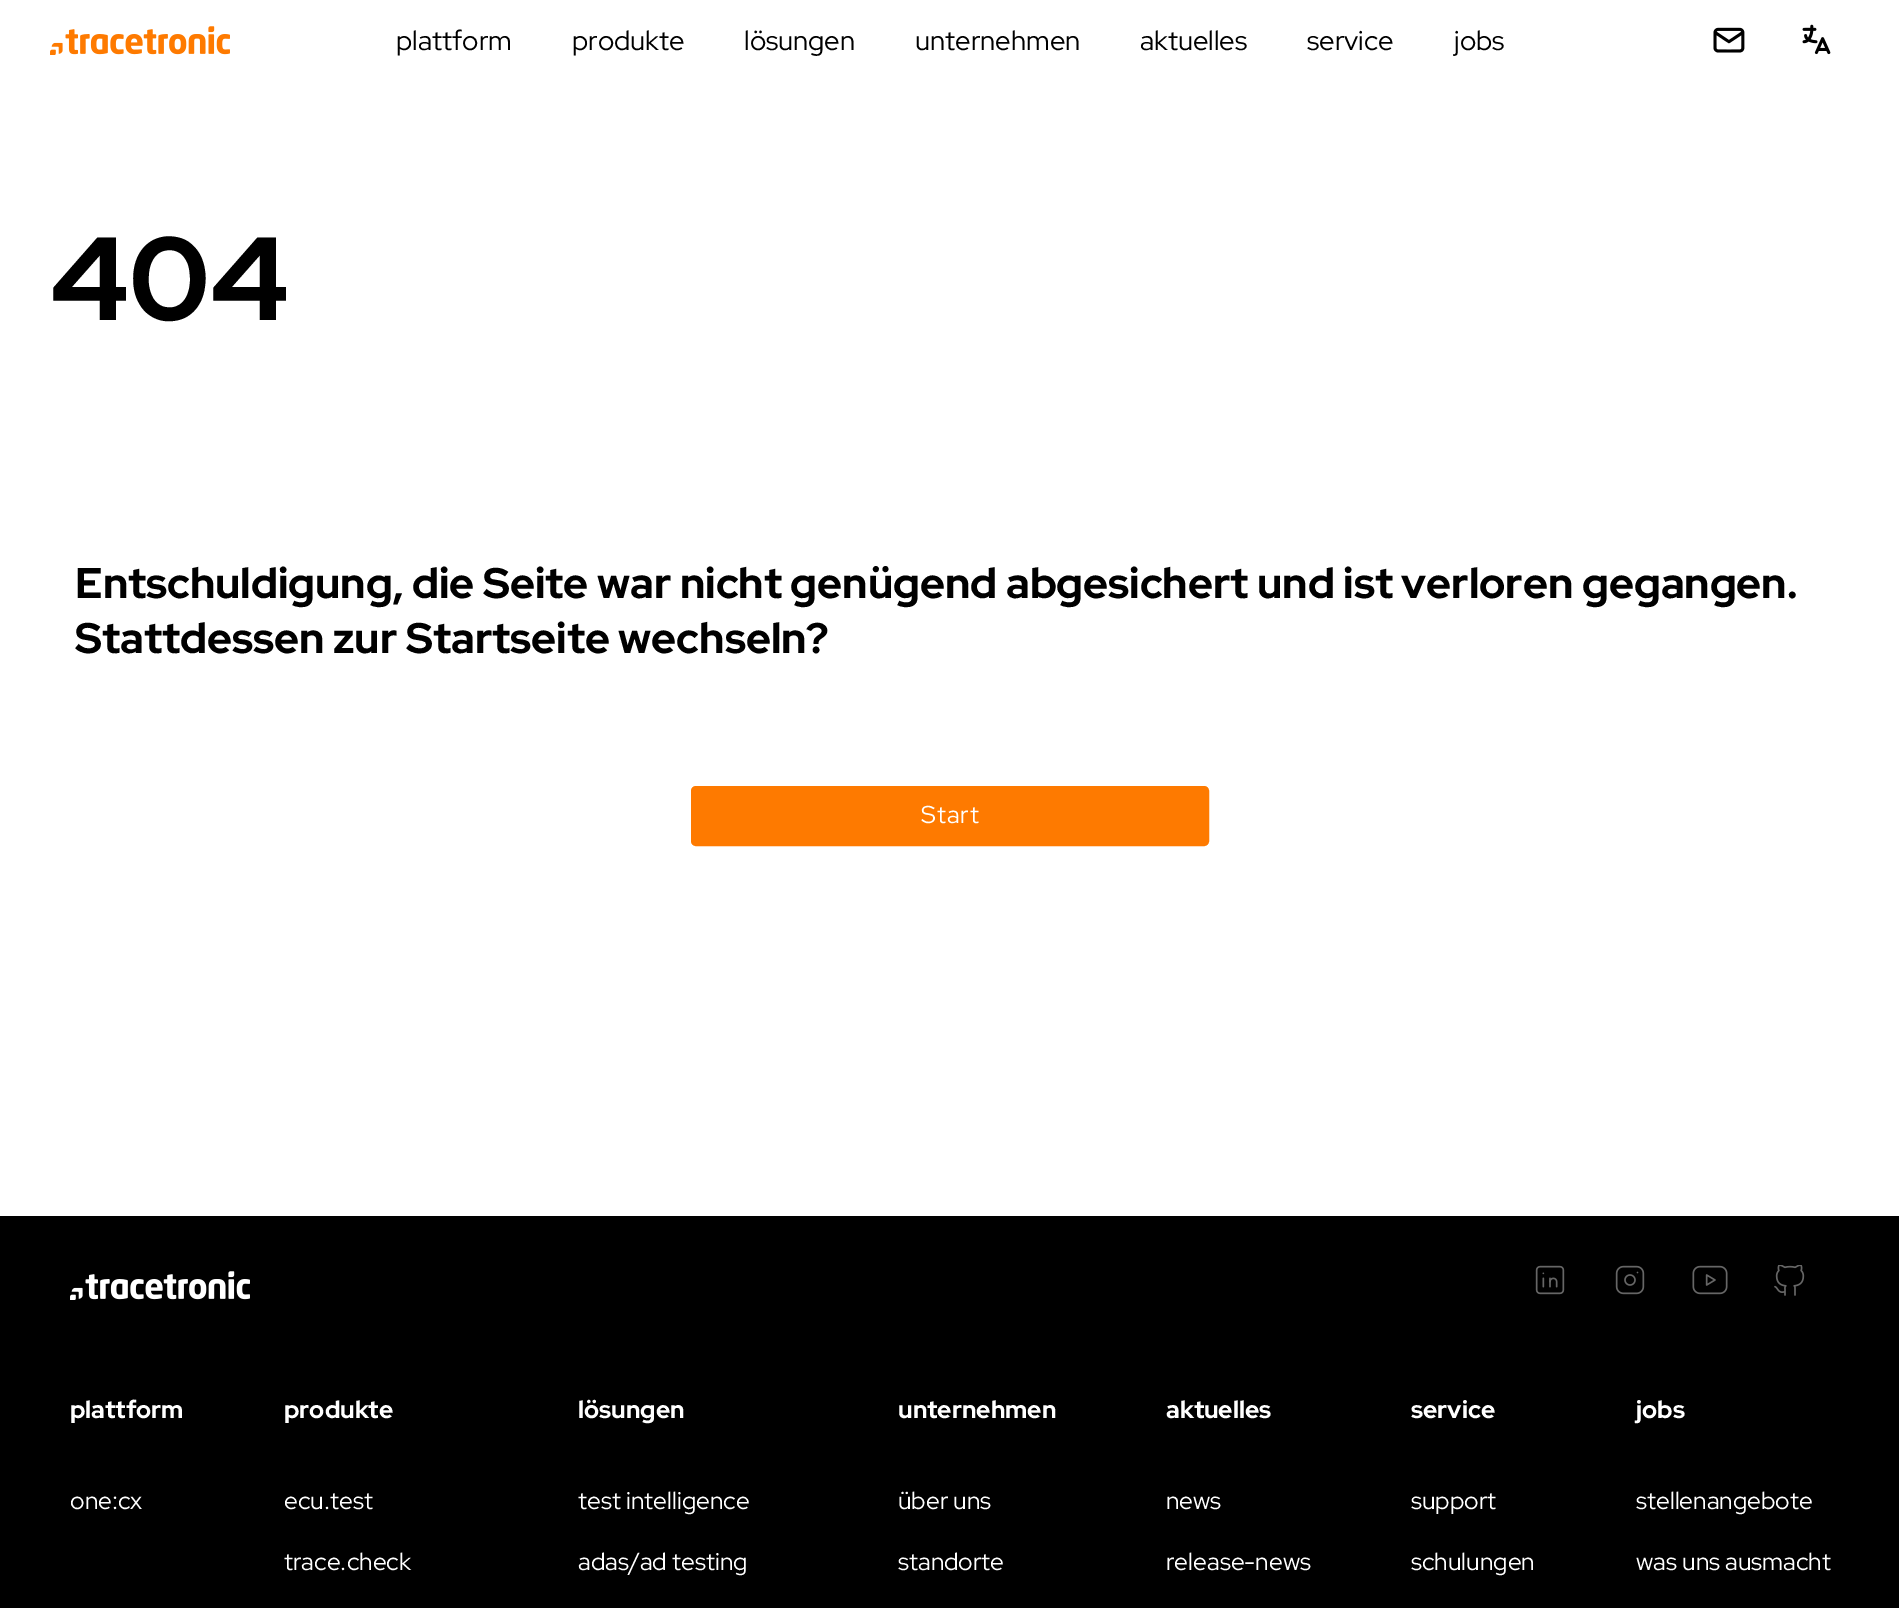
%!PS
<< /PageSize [1899 1608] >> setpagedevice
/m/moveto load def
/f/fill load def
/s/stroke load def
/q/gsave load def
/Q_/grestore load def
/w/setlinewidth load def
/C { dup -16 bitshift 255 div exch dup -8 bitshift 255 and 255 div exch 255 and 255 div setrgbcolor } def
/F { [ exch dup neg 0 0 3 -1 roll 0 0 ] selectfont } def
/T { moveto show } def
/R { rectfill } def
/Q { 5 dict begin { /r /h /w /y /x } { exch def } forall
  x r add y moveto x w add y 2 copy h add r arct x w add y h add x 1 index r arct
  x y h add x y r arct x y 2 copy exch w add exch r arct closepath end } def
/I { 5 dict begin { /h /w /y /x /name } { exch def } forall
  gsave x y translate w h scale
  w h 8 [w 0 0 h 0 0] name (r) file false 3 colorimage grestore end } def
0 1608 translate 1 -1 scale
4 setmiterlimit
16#FFFFFF C
0 0 1899 1608 R
(1.rgb) 50 26 180 29 I
/RedHatDisplay-Regular 27.5 F
16#000000 C
(plattform) 396 50 T
(produkte) 572 50 T
(lösungen) 744 50 T
(unternehmen) 915 50 T
(aktuelles) 1140 50 T
(service) 1307 50 T
(jobs) 1454 50 T
(2.rgb) 1713 27 32 26 I
(3.rgb) 1802 24 29 31 I
/RedHatDisplay-Bold 118 F
(404) 50 320 T
/RedHatDisplay-Bold 42.75 F
(Entschuldigung, die Seite war nicht genügend abgesichert und ist verloren gegangen.) 75 598 T
(Stattdessen zur Startseite wechseln?) 75 653 T
16#FE7A00 C
692.5 787.5 515 57 3.5 Q q f Q_
3 w
s
/RedHatDisplay-Regular 24.5 F
16#FFFFFF C
921 823 m 1 0 (Start) ashow
16#000000 C
0 1216 1899 392 R
(4.rgb) 70 1271 180 29 I
(5.rgb) 1535 1265 30 30 I
(6.rgb) 1615 1265 30 30 I
(7.rgb) 1692 1265 36 30 I
(8.rgb) 1774 1265 31 31 I
/RedHatDisplay-Bold 24.5 F
16#FFFFFF C
(plattform) 70 1418 T
/RedHatDisplay-Regular 24.5 F
(one:cx) 70 1509 T
/RedHatDisplay-Bold 24.5 F
(produkte) 284 1418 T
/RedHatDisplay-Regular 24.5 F
(ecu.test) 284 1509 T
(trace.check) 284 1570 T
/RedHatDisplay-Bold 24.5 F
(lösungen) 578 1418 T
/RedHatDisplay-Regular 24.5 F
(test intelligence) 578 1509 T
(adas/ad testing) 578 1570 T
/RedHatDisplay-Bold 24.5 F
(unternehmen) 898 1418 T
/RedHatDisplay-Regular 24.5 F
(über uns) 898 1509 T
(standorte) 898 1570 T
/RedHatDisplay-Bold 24.5 F
(aktuelles) 1166 1418 T
/RedHatDisplay-Regular 24.5 F
(news) 1166 1509 T
(release-news) 1166 1570 T
/RedHatDisplay-Bold 24.5 F
(service) 1411 1418 T
/RedHatDisplay-Regular 24.5 F
(support) 1411 1509 T
(schulungen) 1411 1570 T
/RedHatDisplay-Bold 24.5 F
(jobs) 1636 1418 T
/RedHatDisplay-Regular 24.5 F
(stellenangebote) 1636 1509 T
(was uns ausmacht) 1636 1570 T
showpage
